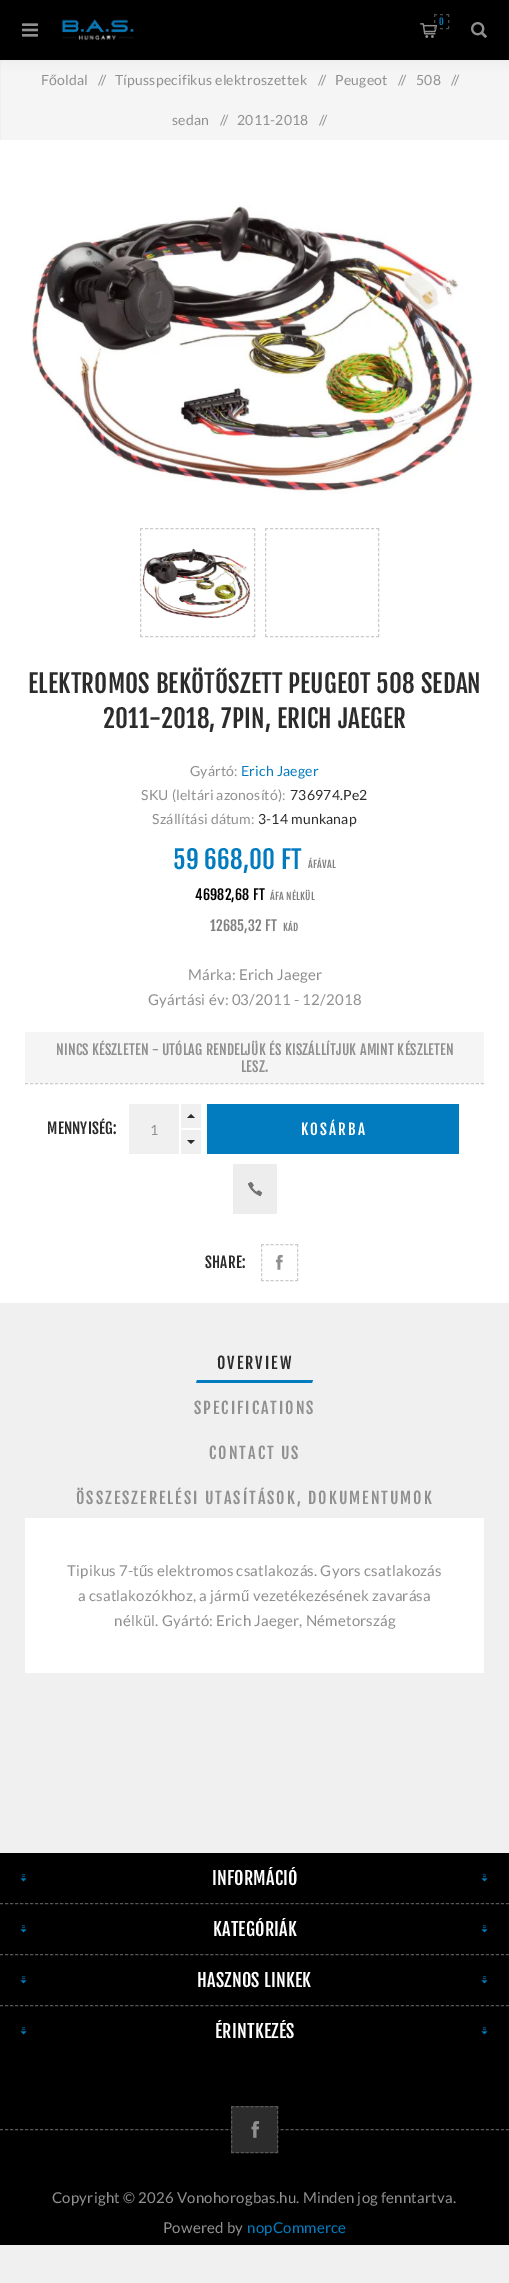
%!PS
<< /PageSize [509 2283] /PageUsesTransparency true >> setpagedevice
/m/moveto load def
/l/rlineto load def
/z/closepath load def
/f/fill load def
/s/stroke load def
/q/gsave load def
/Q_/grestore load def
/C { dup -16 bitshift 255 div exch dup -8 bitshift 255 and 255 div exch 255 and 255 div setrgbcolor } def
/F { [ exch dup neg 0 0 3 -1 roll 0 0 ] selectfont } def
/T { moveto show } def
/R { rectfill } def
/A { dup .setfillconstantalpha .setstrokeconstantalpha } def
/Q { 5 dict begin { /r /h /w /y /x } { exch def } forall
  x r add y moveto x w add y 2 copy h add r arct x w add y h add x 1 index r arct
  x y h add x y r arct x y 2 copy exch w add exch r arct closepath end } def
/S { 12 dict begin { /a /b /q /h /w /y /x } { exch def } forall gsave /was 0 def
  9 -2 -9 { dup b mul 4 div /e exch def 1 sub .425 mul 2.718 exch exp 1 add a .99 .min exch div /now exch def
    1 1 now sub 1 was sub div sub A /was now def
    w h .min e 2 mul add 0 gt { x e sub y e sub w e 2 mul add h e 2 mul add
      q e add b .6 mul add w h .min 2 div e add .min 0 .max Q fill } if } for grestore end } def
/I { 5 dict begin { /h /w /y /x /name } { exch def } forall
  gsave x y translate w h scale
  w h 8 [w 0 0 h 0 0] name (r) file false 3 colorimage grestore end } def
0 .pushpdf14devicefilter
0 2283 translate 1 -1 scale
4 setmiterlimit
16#F0F0F0 C
0 0 509 2283 R
16#F5F5F5 C
1 60 508 80 R
16#000000 C
0 0 509 60 0 7 .06 S
0 0 509 60 R
(1.rgb) 22 23 16 14 I
(2.rgb) 61 19 73 22 I
(3.rgb) 420 23 17 15 I
16#4C4C4C C
434 14.5 m 3 0 l 440 14.5 m 3 0 l 446 14.5 m 3 0 l 448.5 14 m 0 3 l 448.5 20 m 0 3 l 448.5 26 m 0 3 l 434 28.5 m 3 0 l 440 28.5 m 3 0 l 446 28.5 m 3 0 l 434.5 14 m 0 3 l 434.5 20 m 0 3 l 434.5 26 m 0 3 l s
/FjallaOne-Regular 9 F
16#037CBF C
439 25 m .2 0 (0) ashow
(4.rgb) 471 22 16 16 I
/Lato-Regular 14 F
16#909090 C
41 85 m .2 0 (F) ashow
/LiberationSans-Regular 14 F
49 85 m .2 0 (ő) ashow
/Lato-Regular 14 F
57 85 m .2 0 (oldal) ashow
98 85 m -2 0 (//) ashow
115 85 m .2 0 (Típusspecifikus elektroszettek) ashow
318 85 m -2 0 (//) ashow
335 85 m .2 0 (Peugeot) ashow
398 85 m -2 0 (//) ashow
416 85 m .2 0 (508) ashow
451 85 m -2 0 (//) ashow
172 125 m .2 0 (sedan) ashow
220 125 m -2 0 (//) ashow
237 125 m .2 0 (2011-2018) ashow
319 125 m -2 0 (//) ashow
16#FFFFFF C
0 140 509 1163 R
(5.rgb) 31 205 444 289 I
16#CCCCCC C
[3 2.09] 0 setdash
140 528.5 m 115 0 l s
[3 2.05] 0 setdash
254.5 528 m 0 109 l s
[3 2.09] 0 setdash
140 636.5 m 115 0 l s
[3 2.05] 0 setdash
140.5 528 m 0 109 l s
(6.rgb) 142 548 109 71 I
265 528.5 m 114 0 l s
378.5 528 m 0 109 l s
265 636.5 m 114 0 l s
265.5 528 m 0 109 l s
/FjallaOne-Regular 25 F
16#2C2C2C C
28 693 m .2 0 (ELEKTROMOS BEKÖTŐSZETT PEUGEOT 508 SEDAN) ashow
103 728 m .2 0 (2011-2018, 7PIN, ERICH JAEGER) ashow
/Lato-Regular 14 F
16#909090 C
190 776 m .2 0 (Gyártó:) ashow
16#037CBF C
241 776 m .2 0 (Erich Jaeger) ashow
16#909090 C
141 800 m .2 0 (SKU \(leltári azonosító\):) ashow
16#2C2C2C C
290 800 m .2 0 (736974.Pe2) ashow
16#909090 C
152 824 m .2 0 (Szállítási dátum:) ashow
16#2C2C2C C
258 824 m .2 0 (3-14 munkanap) ashow
/FjallaOne-Regular 25 F
16#037CBF C
173 869 m .2 0 (59 668,00 FT) ashow
/FjallaOne-Regular 10 F
16#808080 C
308 868 m .2 0 (ÁFÁVAL) ashow
/FjallaOne-Regular 14 F
16#000000 C
195 900 m .2 0 (46982,68 FT) ashow
/FjallaOne-Regular 10 F
16#808080 C
270 900 m .2 0 (ÁFA NÉLKÜL) ashow
/FjallaOne-Regular 14 F
210 931 m .2 0 (12685,32 FT) ashow
/FjallaOne-Regular 10 F
283 931 m .2 0 (KÁD) ashow
/Lato-Regular 15 F
16#909090 C
188 980 m .2 0 (Márka: Erich Jaeger) ashow
148 1005 m .2 0 (Gyártási év: 03/2011 - 12/2018) ashow
16#CCCCCC C
[3 2.01] 0 setdash
25 1083.5 m 459 0 l s
16#F5F5F5 C
25 1032 459 51 R
/FjallaOne-Regular 14 F
16#909090 C
56 1055 m .2 0 (NINCS KÉSZLETEN - UTÓLAG RENDELJÜK ÉS KISZÁLLÍTJUK AMINT KÉSZLETEN) ashow
241 1072 m .2 0 (LESZ.) ashow
/FjallaOne-Regular 15 F
16#2C2C2C C
47 1134 m .2 0 (MENNYISÉG:) ashow
16#F0F0F0 C
181 1104 20 24 R
16#2C2C2C C
195 1118 m -8 0 l 4 -4 l z f
16#F0F0F0 C
129 1104 50 50 R
/Lato-Regular 14 F
16#909090 C
(1) 150 1135 T
16#F0F0F0 C
181 1130 20 24 R
16#2C2C2C C
187 1140 m 8 0 l -4 4 l z f
16#037CBF C
207 1104 252 50 R
/FjallaOne-Regular 15 F
16#FFFFFF C
301 1135 m 2 0 (KOSÁRBA) ashow
16#EDEDED C
233 1164 44 50 R
(7.rgb) 247 1181 16 16 I
16#2C2C2C C
205 1268 m .2 0 (SHARE:) ashow
16#CCCCCC C
[3 1.86] 0 setdash
261 1244.5 m 37 0 l 297.5 1244 m 0 37 l 261 1280.5 m 37 0 l 261.5 1244 m 0 37 l s
(8.rgb) 275 1254 8 16 I
/FjallaOne-Regular 16 F
16#2C2C2C C
217 1369 m 2 0 (OVERVIEW) ashow
16#037CBF C
197 1380 m 116 0 l -1 3 l -116 0 l z f
16#909090 C
194 1414 m 2 0 (SPECIFICATIONS) ashow
209 1459 m 2 0 (CONTACT US) ashow
76 1504 m 2 0 (ÖSSZESZERELÉSI UTASÍTÁSOK, DOKUMENTUMOK) ashow
16#FFFFFF C
25 1518 459 155 R
/Lato-Regular 15 F
16#909090 C
67 1576 m .2 0 (Tipikus 7-t) ashow
/LiberationSans-Regular 15 F
139 1576 m .2 0 (ű) ashow
/Lato-Regular 15 F
147 1576 m .2 0 (s elektromos csatlakozás. Gyors csatlakozás) ashow
78 1601 m .2 0 (a csatlakozókhoz, a járm) ashow
/LiberationSans-Regular 15 F
241 1601 m .2 0 (ű) ashow
/Lato-Regular 15 F
253 1601 m .2 0 (vezetékezésének zavarása) ashow
114 1626 m .2 0 (nélkül. Gyártó: Erich Jaeger, Németország) ashow
16#000000 C
0 1853 509 392 R
(9.rgb) 20 1874 7 8 I
q
25 1867 459 22 rectclip
/FjallaOne-Regular 18 F
16#FFFFFF C
212 1885 m .2 0 (INFORMÁCIÓ) ashow
Q_
(9.rgb) 481 1874 7 8 I
16#565656 C
[3 2.01] 0 setdash
0 1903.5 m 509 0 l s
(9.rgb) 20 1925 7 8 I
q
25 1918 459 22 rectclip
/FjallaOne-Regular 18 F
16#FFFFFF C
213 1936 m .2 0 (KATEGÓRIÁK) ashow
Q_
(9.rgb) 481 1925 7 8 I
0 1954.5 m 509 0 l s
(9.rgb) 20 1976 7 8 I
/FjallaOne-Regular 18 F
16#FFFFFF C
197 1987 m .2 0 (HASZNOS LINKEK) ashow
(9.rgb) 481 1976 7 8 I
16#565656 C
0 2005.5 m 509 0 l s
(9.rgb) 20 2027 7 8 I
q
25 2020 459 22 rectclip
16#FFFFFF C
215 2038 m .2 0 (ÉRINTKEZÉS) ashow
Q_
(9.rgb) 481 2027 7 8 I
0 2129.5 m 509 0 l s
16#2C2C2C C
231 2106 47 47 R
16#565656 C
[3 1.89] 0 setdash
231 2106.5 m 47 0 l 277.5 2106 m 0 47 l 231 2152.5 m 47 0 l 231.5 2106 m 0 47 l s
(10.rgb) 251 2121 9 17 I
/Lato-Regular 15 F
16#909090 C
52 2203 m .2 0 (Copyright © 2026 Vonohorogbas.hu. Minden jog fenntartva.) ashow
163 2233 m .2 0 (Powered by) ashow
16#037CBF C
247 2233 m .2 0 (nopCommerce) ashow
.poppdf14devicefilter showpage
